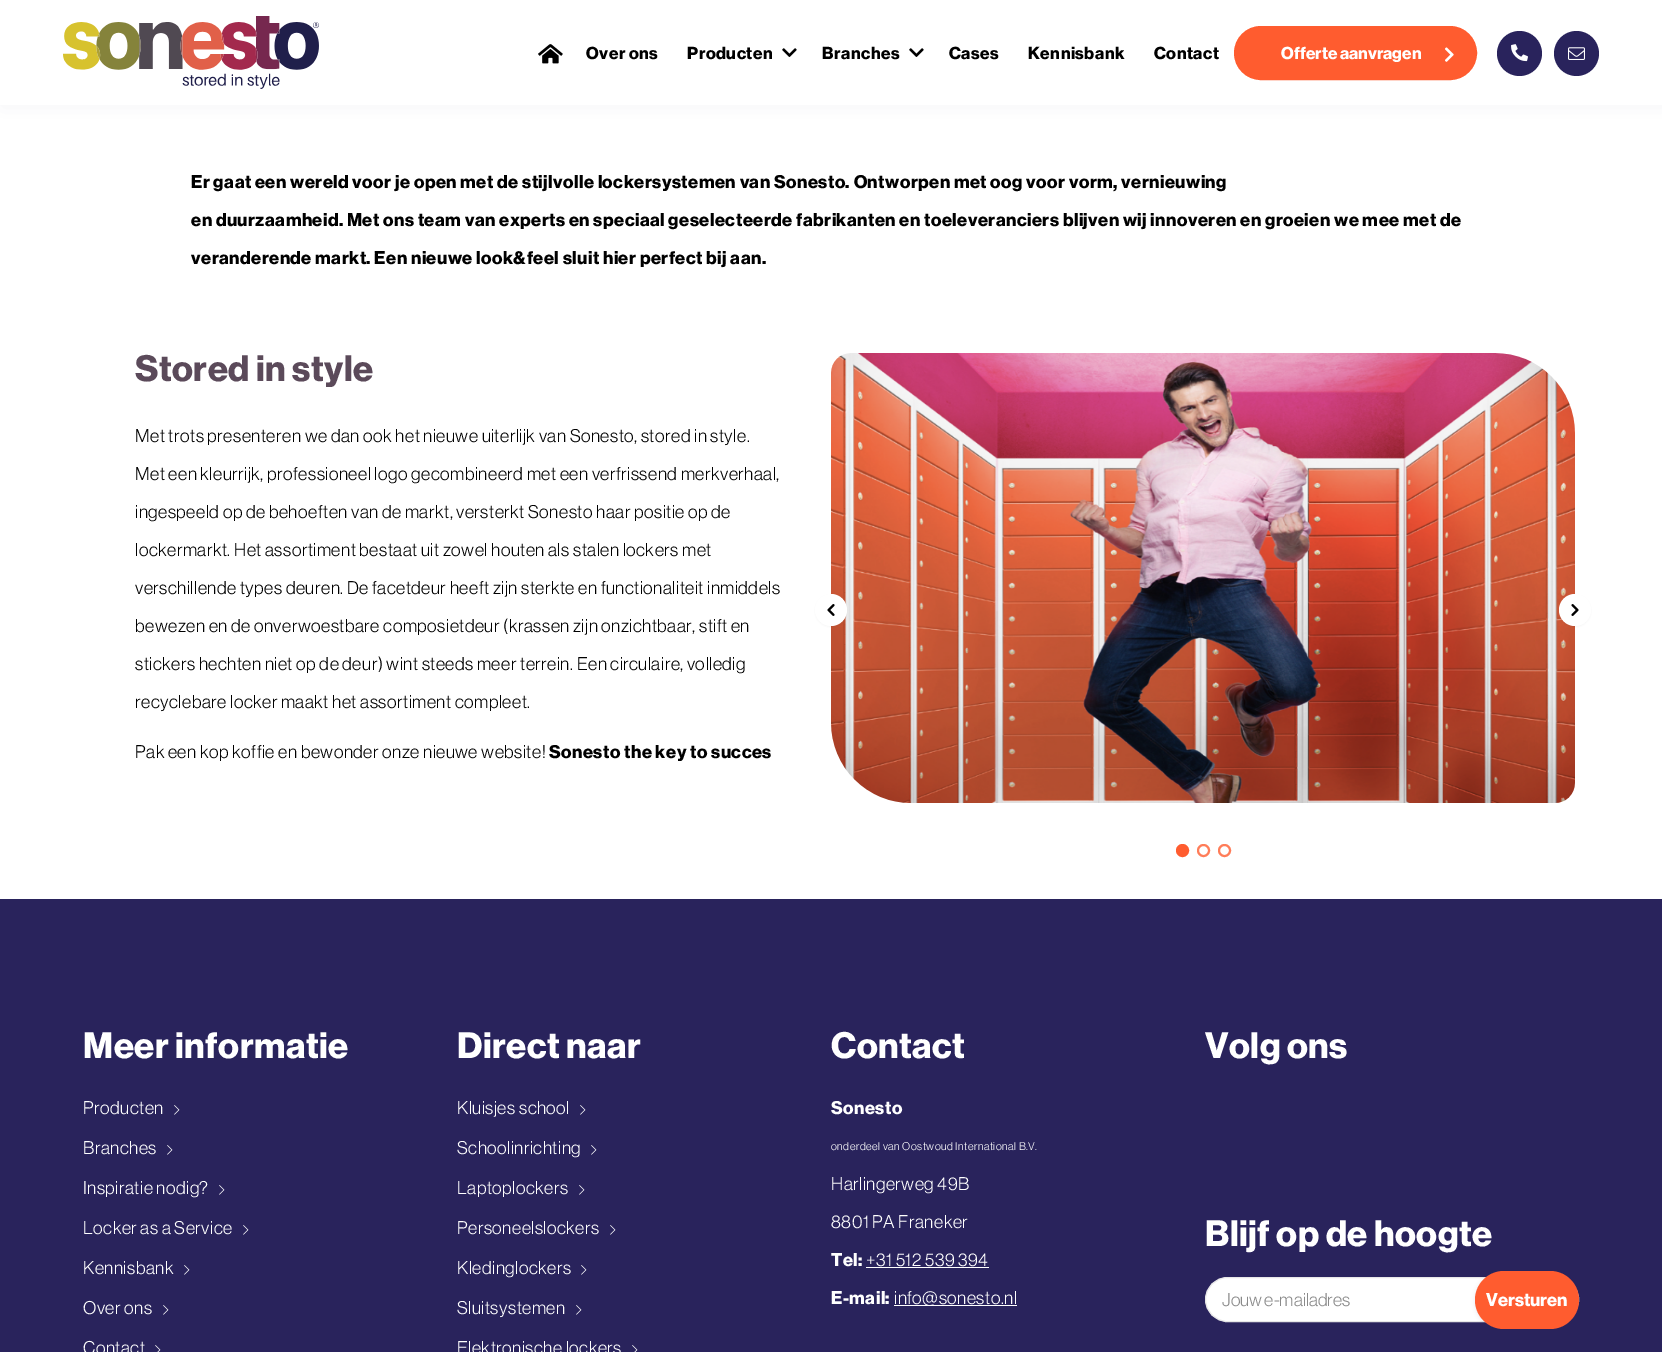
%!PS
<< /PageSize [1662 1352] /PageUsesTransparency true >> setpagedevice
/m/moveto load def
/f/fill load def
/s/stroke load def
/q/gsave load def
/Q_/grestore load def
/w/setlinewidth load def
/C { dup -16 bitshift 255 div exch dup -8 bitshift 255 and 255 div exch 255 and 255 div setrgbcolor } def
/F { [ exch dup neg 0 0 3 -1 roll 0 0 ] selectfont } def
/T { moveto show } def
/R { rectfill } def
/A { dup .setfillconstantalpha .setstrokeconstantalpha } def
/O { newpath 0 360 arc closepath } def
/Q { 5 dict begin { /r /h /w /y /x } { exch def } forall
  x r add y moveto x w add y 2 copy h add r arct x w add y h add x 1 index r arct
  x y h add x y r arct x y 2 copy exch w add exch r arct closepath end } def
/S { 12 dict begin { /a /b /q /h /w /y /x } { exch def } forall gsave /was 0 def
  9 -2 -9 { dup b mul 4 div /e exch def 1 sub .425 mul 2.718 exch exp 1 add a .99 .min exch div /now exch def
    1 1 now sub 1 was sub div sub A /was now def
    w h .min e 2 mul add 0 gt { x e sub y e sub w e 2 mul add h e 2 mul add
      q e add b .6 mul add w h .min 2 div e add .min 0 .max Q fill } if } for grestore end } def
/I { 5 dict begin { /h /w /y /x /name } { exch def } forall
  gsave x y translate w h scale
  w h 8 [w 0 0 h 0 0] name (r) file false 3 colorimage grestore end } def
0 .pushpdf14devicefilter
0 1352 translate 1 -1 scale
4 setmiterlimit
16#FFFFFF C
0 0 1662 1352 R
16#959DA5 C
2 2 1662 105 0 10 .1 S
16#FFFFFF C
0 0 1662 105 R
(1.rgb) 63 16 256 73 I
(2.rgb) 538 44 25 20 I
/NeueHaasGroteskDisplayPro-Bold 17 F
16#000000 C
586 59 m .5 0 (Over ons) ashow
687 59 m .5 0 (Producten) ashow
(3.rgb) 782 48 15 9 I
822 59 m .5 0 (Branches) ashow
(3.rgb) 909 48 15 9 I
949 59 m .5 0 (Cases) ashow
1028 59 m .5 0 (Kennisbank) ashow
1154 59 m .5 0 (Contact) ashow
16#FF5C2F C
1235 27 241 52 26 Q q f Q_
2 w
s
16#FFFFFF C
(Offerte aanvragen) 1281 59 T
(4.rgb) 1445 47 9 15 I
16#29235C C
1519.5 53.5 22.5 O f
(5.rgb) 1511 44 17 18 I
1576.5 53.5 22.5 O f
(6.rgb) 1568 47 17 13 I
/NeueHaasGroteskDisplayPro-Bold 18 F
16#000000 C
191 188 m .5 0 (Er gaat een wereld voor je open met de stijlvolle lockersystemen van Sonesto. Ontworpen met oog voor vorm, vernieuwing) ashow
191 226 m .5 0 (en duurzaamheid. Met ons team van experts en speciaal geselecteerde fabrikanten en toeleveranciers blijven wij innoveren en groeien we mee met de) ashow
191 264 m .5 0 (veranderende markt. Een nieuwe look&feel sluit hier perfect bij aan.) ashow
/NeueHaasGroteskDisplayPro-Bold 36 F
16#5B4A5A C
135 381 m .5 0 (Stored in style) ashow
/NeueHaasGroteskDisplayPro-Regular 18 F
16#000000 C
135 442 m .5 0 (Met trots presenteren we dan ook het nieuwe uiterlijk van Sonesto, stored in style.) ashow
135 480 m .5 0 (Met een kleurrijk, professioneel logo gecombineerd met een verfrissend merkverhaal,) ashow
135 518 m .5 0 (ingespeeld op de behoeften van de markt, versterkt Sonesto haar positie op de) ashow
135 556 m .5 0 (lockermarkt. Het assortiment bestaat uit zowel houten als stalen lockers met) ashow
135 594 m .5 0 (verschillende types deuren. De facetdeur heeft zijn sterkte en functionaliteit inmiddels) ashow
135 632 m .5 0 (bewezen en de onverwoestbare composietdeur \(krassen zijn onzichtbaar, stift en) ashow
135 670 m .5 0 (stickers hechten niet op de deur\) wint steeds meer terrein. Een circulaire, volledig) ashow
135 708 m .5 0 (recyclebare locker maakt het assortiment compleet.) ashow
135 758 m .5 0 (Pak een kop koffie en bewonder onze nieuwe website!) ashow
/NeueHaasGroteskDisplayPro-Bold 18 F
549 758 m .5 0 (Sonesto the key to succes) ashow
(7.rgb) 831 353 744 450 I
16#FF5C2F C
1182.5 850.5 5.5 O q f Q_
s
16#FF7D59 C
1203.5 850.5 5.5 O s
1224.5 850.5 5.5 O s
16#000000 C
815 595 32 32 16 1 .04 S
16#FFFFFF C
831 610 16 O f
(8.rgb) 827 604 8 12 I
16#000000 C
1559 595 32 32 16 1 .04 S
16#FFFFFF C
1575 610 16 O f
(9.rgb) 1571 604 8 12 I
16#29235C C
0 899 1662 453 R
/NeueHaasGroteskDisplayPro-Bold 36 F
16#FFFFFF C
83 1058 m .5 0 (Meer informatie) ashow
/NeueHaasGroteskDisplayPro-Regular 18 F
83 1114 m .5 0 (Producten) ashow
(10.rgb) 174 1105 6 10 I
83 1154 m .5 0 (Branches) ashow
(10.rgb) 167 1145 6 10 I
83 1194 m .5 0 (Inspiratie nodig?) ashow
(10.rgb) 219 1185 6 10 I
83 1234 m .5 0 (Locker as a Service) ashow
(10.rgb) 243 1225 6 10 I
83 1274 m .5 0 (Kennisbank) ashow
(10.rgb) 184 1265 6 10 I
83 1314 m .5 0 (Over ons) ashow
(10.rgb) 163 1305 6 10 I
83 1354 m .5 0 (Contact) ashow
(11.rgb) 155 1345 6 7 I
/NeueHaasGroteskDisplayPro-Bold 36 F
457 1058 m .5 0 (Direct naar) ashow
/NeueHaasGroteskDisplayPro-Regular 18 F
457 1114 m .5 0 (Kluisjes school) ashow
(10.rgb) 580 1105 6 10 I
457 1154 m .5 0 (Schoolinrichting) ashow
(10.rgb) 591 1145 6 10 I
457 1194 m .5 0 (Laptoplockers) ashow
(10.rgb) 579 1185 6 10 I
457 1234 m .5 0 (Personeelslockers) ashow
(10.rgb) 610 1225 6 10 I
457 1274 m .5 0 (Kledinglockers) ashow
(10.rgb) 581 1265 6 10 I
457 1314 m .5 0 (Sluitsystemen) ashow
(10.rgb) 576 1305 6 10 I
457 1354 m .5 0 (Elektronische lockers) ashow
(11.rgb) 632 1345 6 7 I
/NeueHaasGroteskDisplayPro-Bold 36 F
831 1058 m .5 0 (Contact) ashow
/NeueHaasGroteskDisplayPro-Bold 18 F
831 1114 m .5 0 (Sonesto) ashow
/NeueHaasGroteskDisplayPro-Regular 11 F
831 1150 m .5 0 (onderdeel van Oostwoud International B.V.) ashow
/NeueHaasGroteskDisplayPro-Regular 18 F
831 1190 m .5 0 (Harlingerweg 49B) ashow
831 1228 m .5 0 (8801 PA Franeker) ashow
/NeueHaasGroteskDisplayPro-Bold 18 F
831 1266 m .5 0 (Tel:) ashow
/NeueHaasGroteskDisplayPro-Regular 18 F
866 1266 m .5 0 (+31 512 539 394) ashow
866 1267 123 1 R
/NeueHaasGroteskDisplayPro-Bold 18 F
831 1304 m .5 0 (E-mail:) ashow
894 1305 123 1 R
/NeueHaasGroteskDisplayPro-Regular 18 F
894 1304 m .5 0 (info@sonesto.nl) ashow
/NeueHaasGroteskDisplayPro-Bold 36 F
1205 1058 m .5 0 (Volg ons) ashow
1205 1246 m .5 0 (Blijf op de hoogte) ashow
1205.5 1277.5 373 44 22 Q q f Q_
16#E7E7E7 C
1 w
s
/NeueHaasGroteskDisplayPro-Regular 18 F
16#8A8A8A C
(Jouw e-mailadres) 1222 1306 T
16#121961 C
1475 1272 104 58 29 2 .08 S
16#FF5C2F C
1475 1271 104 58 29 Q f
/NeueHaasGroteskDisplayPro-Bold 18 F
16#FFFFFF C
(Versturen) 1486 1306 T
.poppdf14devicefilter showpage
